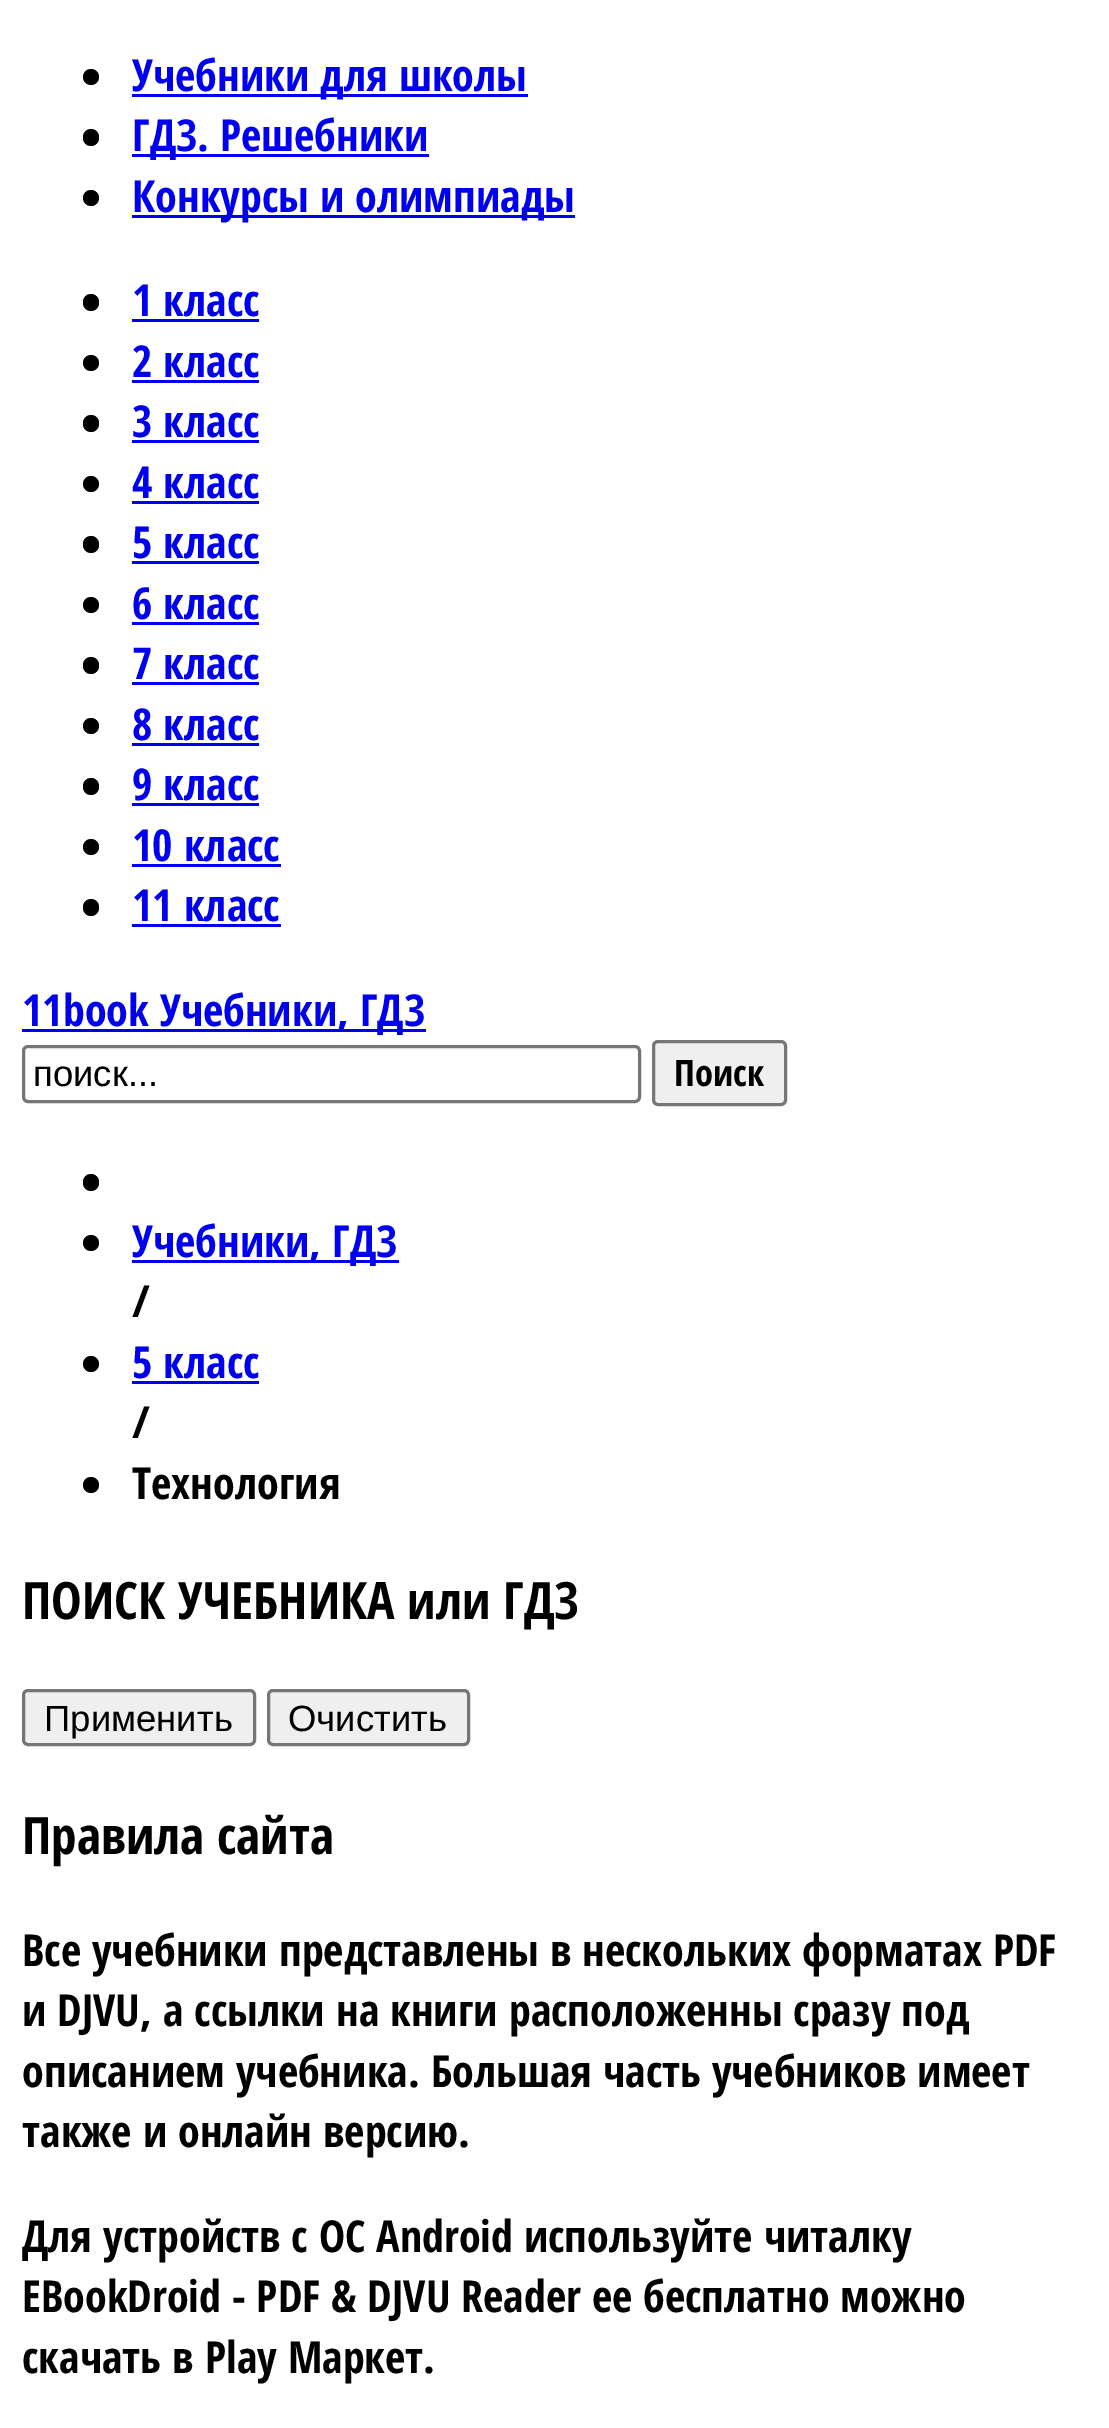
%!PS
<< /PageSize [1109 2428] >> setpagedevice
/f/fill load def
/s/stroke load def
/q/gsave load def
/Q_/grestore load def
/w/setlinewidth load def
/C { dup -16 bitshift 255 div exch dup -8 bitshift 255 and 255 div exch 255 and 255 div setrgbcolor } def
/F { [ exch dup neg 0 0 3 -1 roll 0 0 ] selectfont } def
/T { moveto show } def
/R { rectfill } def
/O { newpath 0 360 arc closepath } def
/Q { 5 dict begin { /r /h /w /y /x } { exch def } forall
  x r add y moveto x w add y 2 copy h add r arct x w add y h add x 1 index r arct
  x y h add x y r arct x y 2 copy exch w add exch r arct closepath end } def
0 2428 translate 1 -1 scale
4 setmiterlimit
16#FFFFFF C
0 0 1109 2428 R
16#000000 C
91 77 8 O f
16#0000EE C
132 94 396 3 R
/OpenSansCondensed-Bold 44 F
(Учебники для школы) 132 91 T
16#000000 C
83 129 16 17 8 Q f
16#0000EE C
132 154 297 3 R
(ГДЗ. Решебники) 132 151 T
16#000000 C
91 198 8 O f
16#0000EE C
132 215 443 3 R
(Конкурсы и олимпиады) 132 212 T
16#000000 C
83 294 16 17 8 Q f
16#0000EE C
(1 класс) 132 316 T
132 319 127 3 R
16#000000 C
91 363 8 O f
16#0000EE C
(2 класс) 132 377 T
132 380 127 3 R
16#000000 C
83 415 16 17 8 Q f
16#0000EE C
(3 класс) 132 437 T
132 440 127 3 R
16#000000 C
91 484 8 O f
16#0000EE C
(4 класс) 132 498 T
132 501 127 3 R
16#000000 C
83 536 16 17 8 Q f
16#0000EE C
(5 класс) 132 558 T
132 561 127 3 R
16#000000 C
91 605 8 O f
16#0000EE C
(6 класс) 132 619 T
132 622 127 3 R
16#000000 C
83 657 16 17 8 Q f
16#0000EE C
(7 класс) 132 679 T
132 682 127 3 R
16#000000 C
91 726 8 O f
16#0000EE C
(8 класс) 132 740 T
132 743 127 3 R
16#000000 C
83 778 16 17 8 Q f
16#0000EE C
(9 класс) 132 800 T
132 803 127 3 R
16#000000 C
91 847 8 O f
16#0000EE C
(10 класс) 132 861 T
132 864 149 3 R
16#000000 C
83 899 16 17 8 Q f
16#0000EE C
(11 класс) 132 921 T
132 924 149 3 R
22 1029 404 3 R
(11book Учебники, ГДЗ) 22 1026 T
16#767676 C
3 w
23.5 1046.5 616 55 4.5 Q s
/LiberationSans-Regular 36.5 F
16#000000 C
(поиск...) 33 1086 T
16#EFEFEF C
653.5 1041.5 132 63 4.5 Q q f Q_
16#767676 C
s
/OpenSansCondensed-Bold 36.5 F
16#000000 C
(Поиск) 674 1086 T
83 1174 16 17 8 Q f
91 1243 8 O f
16#0000EE C
132 1260 267 3 R
/OpenSansCondensed-Bold 44 F
(Учебники, ГДЗ) 132 1257 T
16#000000 C
(/) 132 1317 T
91 1364 8 O f
16#0000EE C
(5 класс) 132 1378 T
132 1381 127 3 R
16#000000 C
(/) 132 1438 T
91 1485 8 O f
(Технология) 132 1499 T
/OpenSansCondensed-Bold 51.5 F
(ПОИСК УЧЕБНИКА или ГДЗ) 22 1619 T
16#EFEFEF C
23.5 1690.5 231 54 4.5 Q q f Q_
16#767676 C
s
/LiberationSans-Regular 36.5 F
16#000000 C
(Применить) 44 1731 T
16#EFEFEF C
268.5 1690.5 200 54 4.5 Q q f Q_
16#767676 C
s
16#000000 C
(Очистить) 288 1731 T
/OpenSansCondensed-Bold 51.5 F
(Правила сайта) 22 1854 T
/OpenSansCondensed-Bold 44 F
(Все учебники представлены в нескольких форматах PDF) 22 1966 T
(и DJVU, а ссылки на книги расположенны сразу под) 22 2026 T
(описанием учебника. Большая часть учебников имеет) 22 2087 T
(также и онлайн версию.) 22 2147 T
(Для устройств с ОС Android используйте читалку) 22 2252 T
(EBookDroid - PDF & DJVU Reader ее бесплатно можно) 22 2312 T
(скачать в) 22 2373 T
(Play Маркет.) 205 2373 T
showpage
